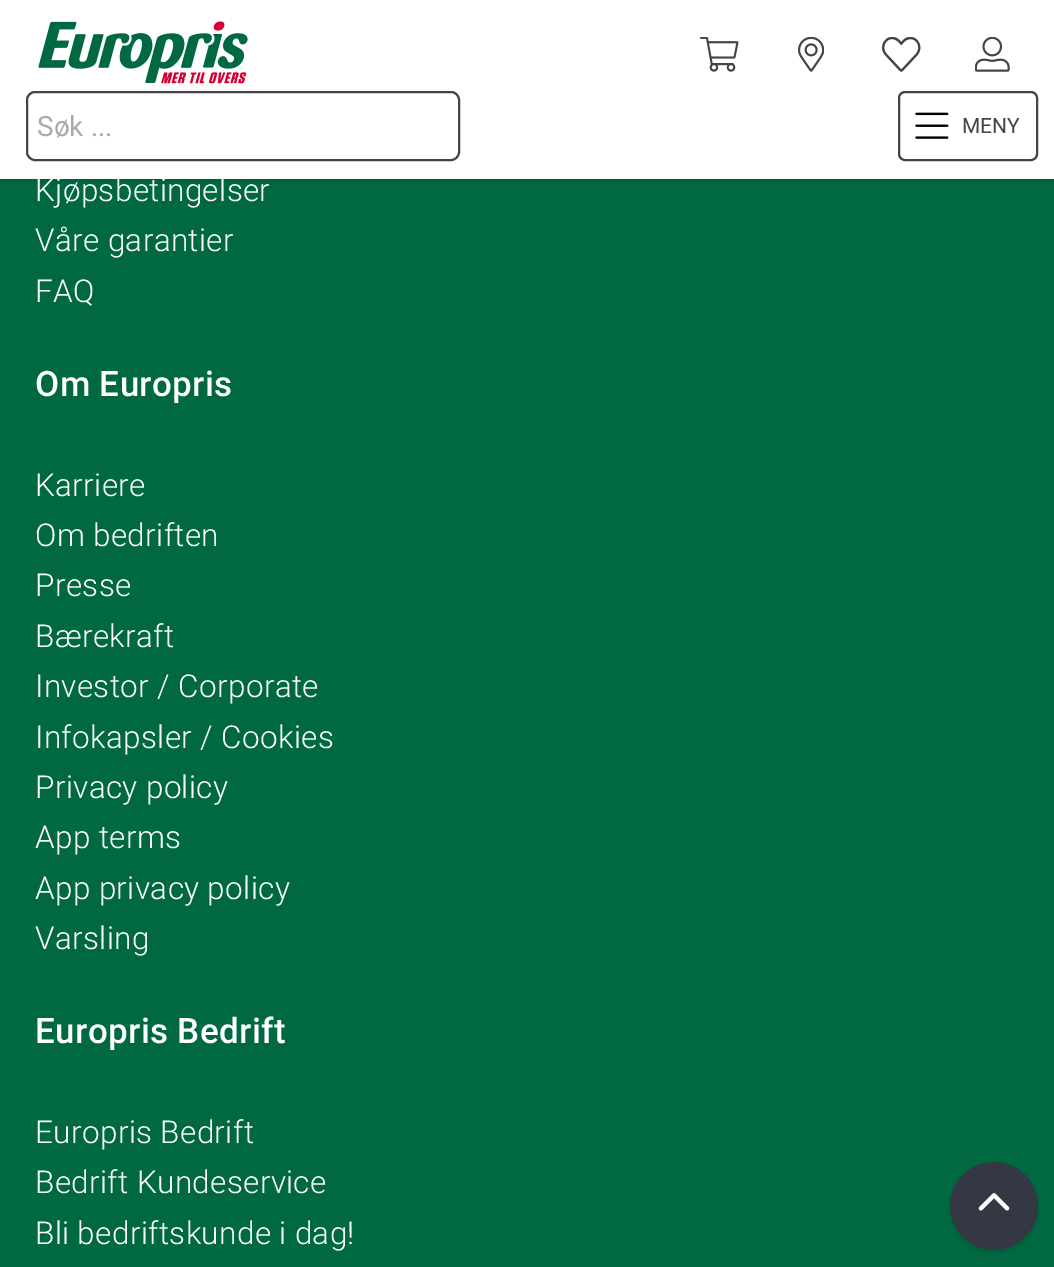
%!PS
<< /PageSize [1054 1267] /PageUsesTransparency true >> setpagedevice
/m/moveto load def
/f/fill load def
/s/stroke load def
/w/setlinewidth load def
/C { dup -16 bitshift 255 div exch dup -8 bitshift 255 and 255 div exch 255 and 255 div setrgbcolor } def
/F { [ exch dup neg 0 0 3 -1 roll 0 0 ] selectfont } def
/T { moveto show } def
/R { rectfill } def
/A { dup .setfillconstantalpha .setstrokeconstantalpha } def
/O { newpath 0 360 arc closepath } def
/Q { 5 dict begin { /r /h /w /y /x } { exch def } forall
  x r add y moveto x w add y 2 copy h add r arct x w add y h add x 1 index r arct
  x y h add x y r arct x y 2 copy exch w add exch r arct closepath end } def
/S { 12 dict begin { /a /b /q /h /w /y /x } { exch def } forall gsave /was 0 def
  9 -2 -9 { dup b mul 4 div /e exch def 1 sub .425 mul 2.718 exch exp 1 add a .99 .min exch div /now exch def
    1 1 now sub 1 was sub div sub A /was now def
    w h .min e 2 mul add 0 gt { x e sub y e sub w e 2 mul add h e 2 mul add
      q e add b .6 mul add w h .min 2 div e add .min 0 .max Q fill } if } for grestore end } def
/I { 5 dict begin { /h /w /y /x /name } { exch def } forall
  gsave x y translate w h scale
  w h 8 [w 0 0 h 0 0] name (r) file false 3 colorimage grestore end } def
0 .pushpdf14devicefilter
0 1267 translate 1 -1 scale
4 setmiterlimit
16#006941 C
0 0 1054 1267 R
16#000000 C
0 4 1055 178 0 3.5 .1 S
16#FFFFFF C
0 0 1054 179 R
(1.rgb) 38 21 210 63 I
(2.rgb) 700 37 39 35 I
(3.rgb) 798 37 26 35 I
(4.rgb) 882 37 39 35 I
(5.rgb) 975 37 35 35 I
16#444444 C
2 w
27 92 432 68 8 Q s
/Roboto-Regular 28 F
16#AAAAAA C
(Søk ...) 37 136 T
16#444444 C
899 92 138 68 6 Q s
(6.rgb) 915 112 34 27 I
/Roboto-Regular 21 F
(MENY) 962 133 T
/Roboto-Light 31.5 F
16#FFFFFF C
35 201 m .35 0 (Kjøpsbetingelser) ashow
35 251 m .35 0 (Våre garantier) ashow
35 302 m .35 0 (FAQ) ashow
/Roboto-Medium 35 F
35 396 m .35 0 (Om Europris) ashow
/Roboto-Light 31.5 F
35 496 m .35 0 (Karriere) ashow
35 546 m .35 0 (Om bedriften) ashow
35 596 m .35 0 (Presse) ashow
35 647 m .35 0 (Bærekraft) ashow
35 697 m .35 0 (Investor / Corporate) ashow
35 748 m .35 0 (Infokapsler / Cookies) ashow
35 798 m .35 0 (Privacy policy) ashow
35 848 m .35 0 (App terms) ashow
35 899 m .35 0 (App privacy policy) ashow
35 949 m .35 0 (Varsling) ashow
/Roboto-Medium 35 F
35 1043 m .35 0 (Europris Bedrift) ashow
/Roboto-Light 31.5 F
35 1143 m .35 0 (Europris Bedrift) ashow
35 1193 m .35 0 (Bedrift Kundeservice) ashow
35 1244 m .35 0 (Bli bedriftskunde i dag!) ashow
16#000000 C
950 1166 88 87 43.5 3.5 .1 S
16#343844 C
994 1206 44 O f
(7.rgb) 978 1193 32 18 I
.poppdf14devicefilter showpage
